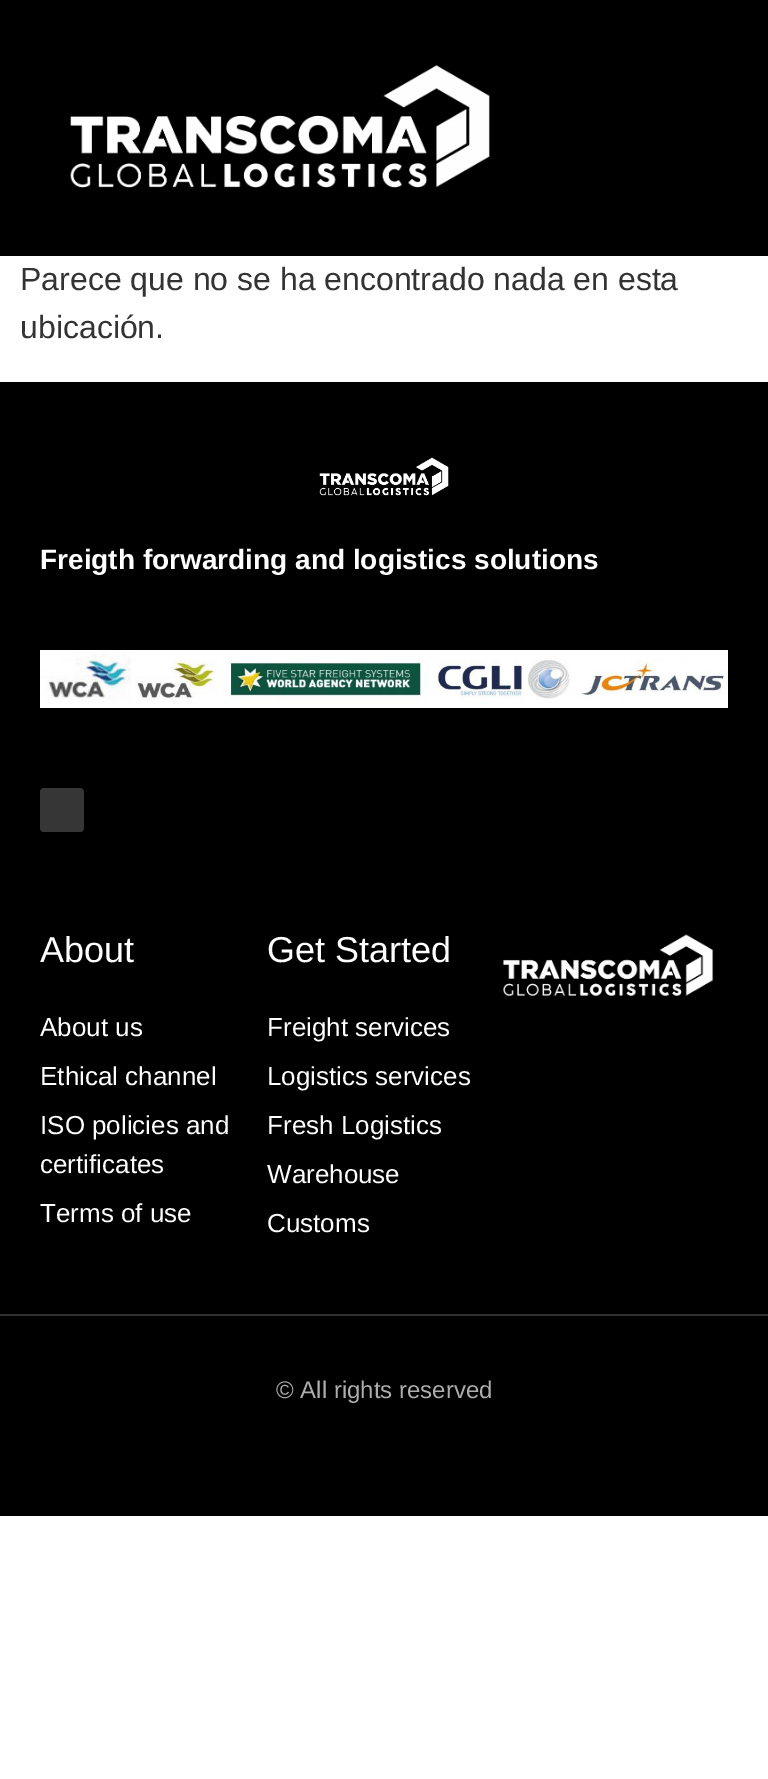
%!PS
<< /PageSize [768 1779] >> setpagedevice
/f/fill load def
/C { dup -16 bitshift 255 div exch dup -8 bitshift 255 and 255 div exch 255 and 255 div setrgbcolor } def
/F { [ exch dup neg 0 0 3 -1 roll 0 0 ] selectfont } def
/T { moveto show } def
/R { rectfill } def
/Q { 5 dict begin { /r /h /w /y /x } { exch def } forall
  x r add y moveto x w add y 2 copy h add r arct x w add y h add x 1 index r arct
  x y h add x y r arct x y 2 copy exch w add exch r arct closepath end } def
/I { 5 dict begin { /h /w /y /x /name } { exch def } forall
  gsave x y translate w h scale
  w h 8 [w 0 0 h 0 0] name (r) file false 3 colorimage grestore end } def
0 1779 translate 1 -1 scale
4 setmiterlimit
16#FFFFFF C
0 0 768 1779 R
16#000000 C
0 0 768 256 R
(1.rgb) 70 65 420 123 I
/LiberationSans-Regular 32 F
16#333333 C
(Parece que no se ha encontrado nada en esta) 20 290 T
(ubicación.) 20 338 T
16#000000 C
0 382 768 932 R
(2.rgb) 319 457 130 39 I
/LiberationSans-Bold 28 F
16#FFFFFF C
(Freigth forwarding and logistics solutions) 40 569 T
(3.rgb) 40 650 688 58 I
16#363636 C
40 788 44 44 4 Q f
/LiberationSans-Regular 36 F
16#FFFFFF C
(About) 40 962 T
/LiberationSans-Regular 26 F
(About us) 40 1036 T
(Ethical channel) 40 1085 T
(ISO policies and) 40 1134 T
(certificates) 40 1173 T
(Terms of use) 40 1222 T
/LiberationSans-Regular 36 F
(Get Started) 267 962 T
/LiberationSans-Regular 26 F
(Freight services) 267 1036 T
(Logistics services) 267 1085 T
(Fresh Logistics) 267 1134 T
(Warehouse) 267 1183 T
(Customs) 267 1232 T
(4.rgb) 503 934 211 63 I
16#000000 C
0 1316 768 200 R
16#303030 C
0 1314 768 2 R
/LiberationSans-Regular 24 F
16#ADADAD C
(© All rights reserved) 276 1398 T
showpage
